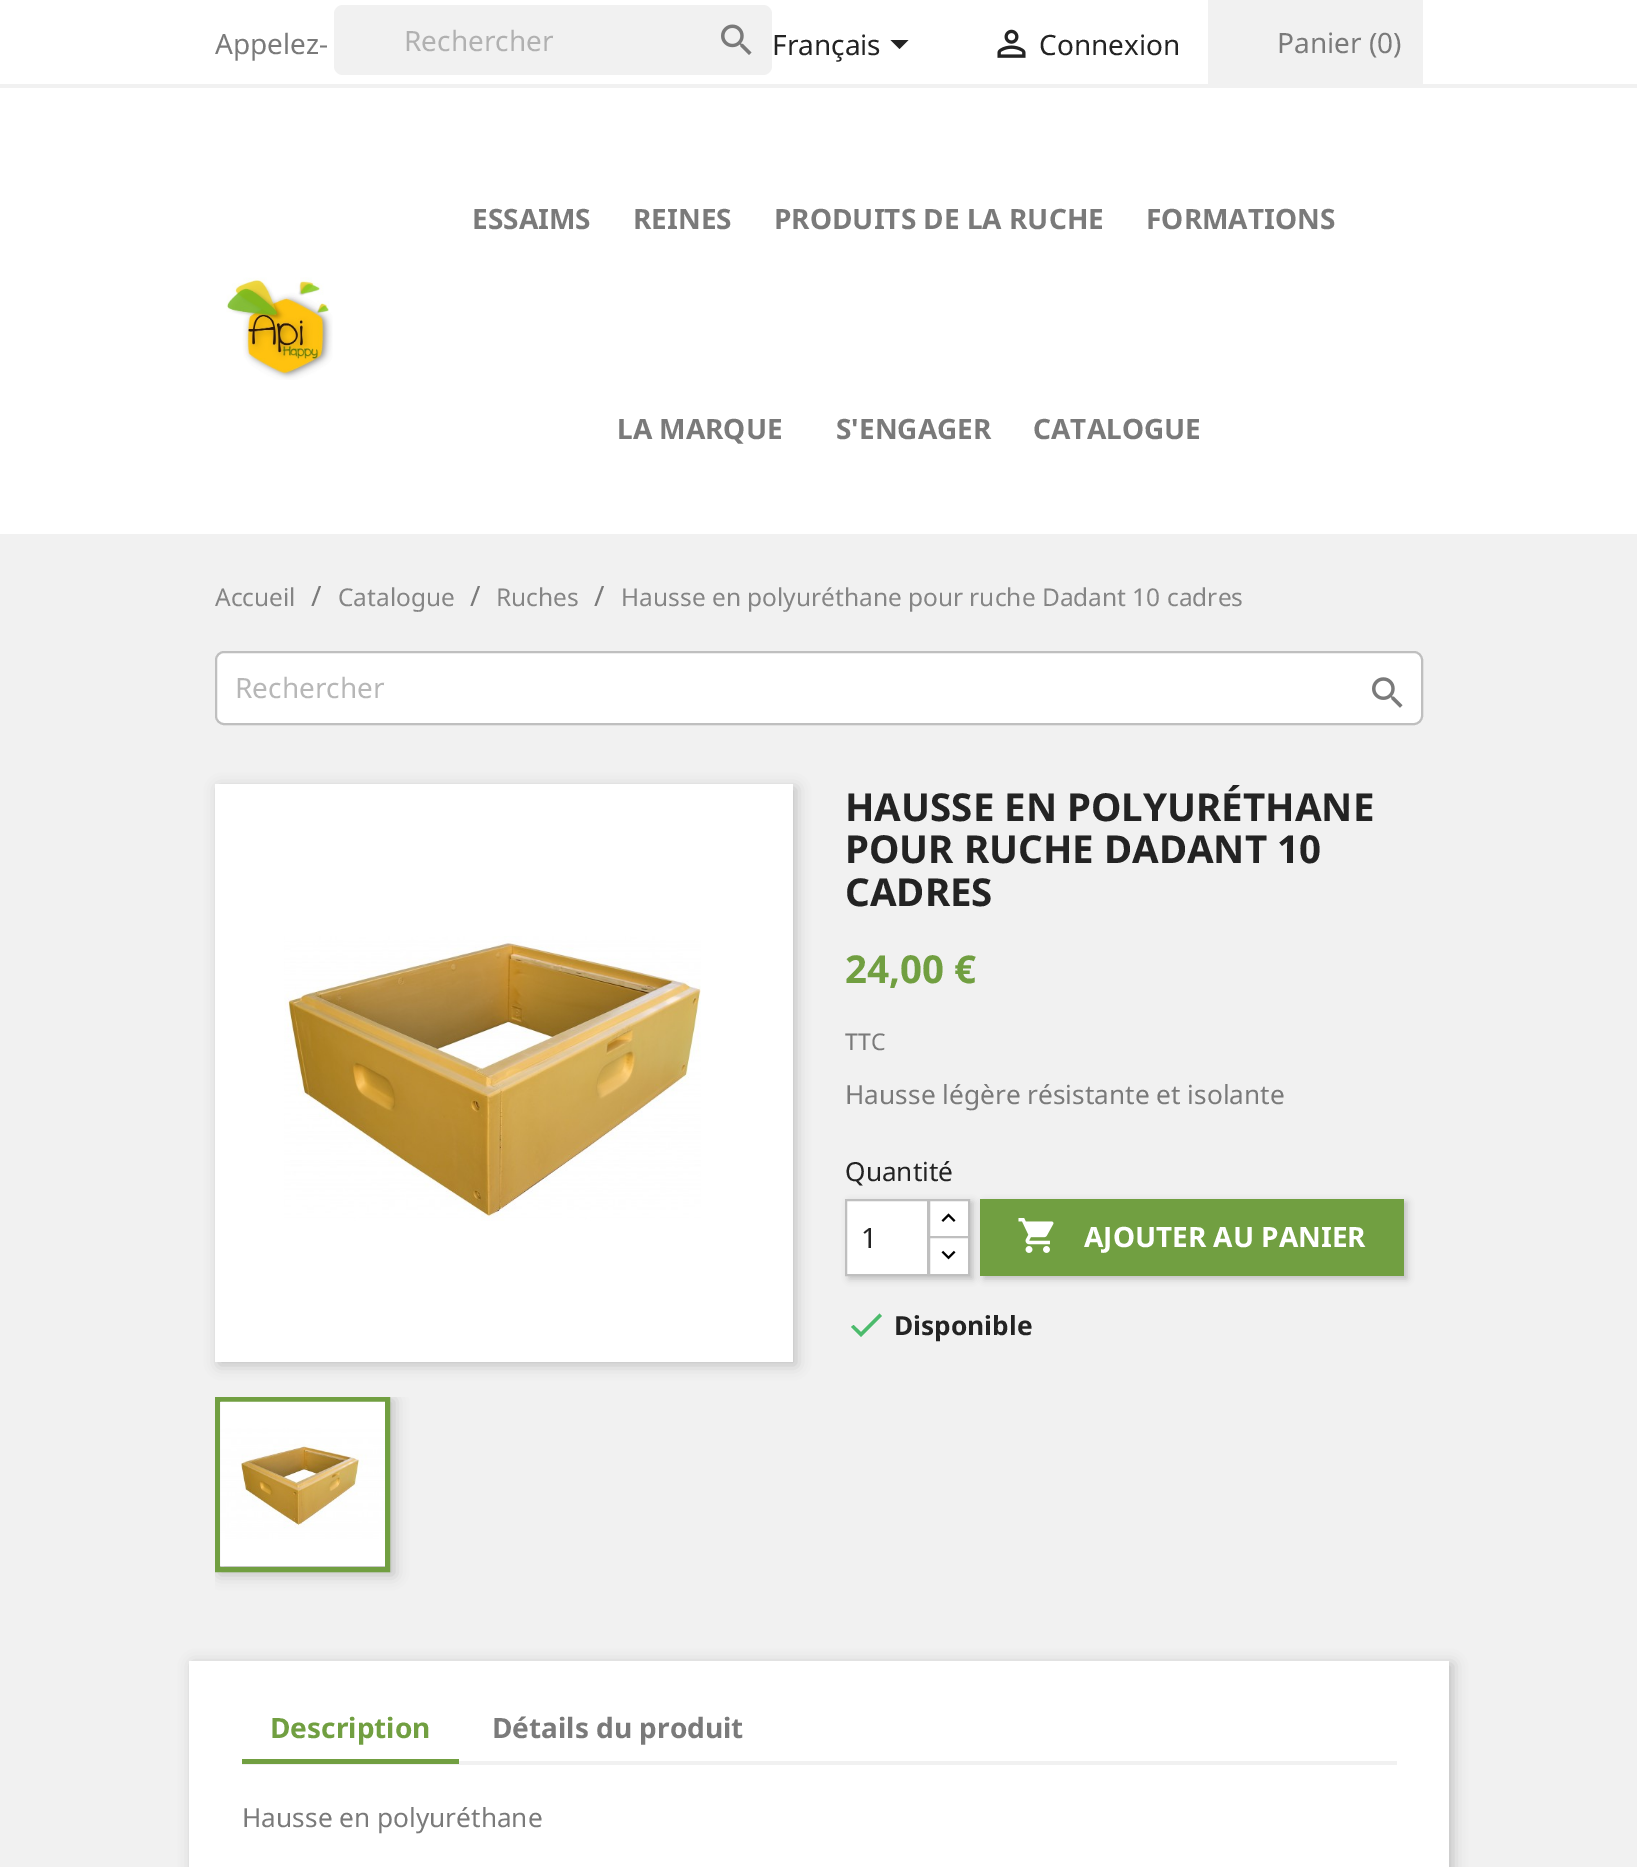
%!PS
<< /PageSize [1637 1867] /PageUsesTransparency true >> setpagedevice
/m/moveto load def
/l/rlineto load def
/z/closepath load def
/f/fill load def
/s/stroke load def
/q/gsave load def
/Q_/grestore load def
/w/setlinewidth load def
/C { dup -16 bitshift 255 div exch dup -8 bitshift 255 and 255 div exch 255 and 255 div setrgbcolor } def
/F { [ exch dup neg 0 0 3 -1 roll 0 0 ] selectfont } def
/T { moveto show } def
/R { rectfill } def
/A { dup .setfillconstantalpha .setstrokeconstantalpha } def
/Q { 5 dict begin { /r /h /w /y /x } { exch def } forall
  x r add y moveto x w add y 2 copy h add r arct x w add y h add x 1 index r arct
  x y h add x y r arct x y 2 copy exch w add exch r arct closepath end } def
/S { 12 dict begin { /a /b /q /h /w /y /x } { exch def } forall gsave /was 0 def
  9 -2 -9 { dup b mul 4 div /e exch def 1 sub .425 mul 2.718 exch exp 1 add a .99 .min exch div /now exch def
    1 1 now sub 1 was sub div sub A /was now def
    w h .min e 2 mul add 0 gt { x e sub y e sub w e 2 mul add h e 2 mul add
      q e add b .6 mul add w h .min 2 div e add .min 0 .max Q fill } if } for grestore end } def
/I { 5 dict begin { /h /w /y /x /name } { exch def } forall
  gsave x y translate w h scale
  w h 8 [w 0 0 h 0 0] name (r) file false 3 colorimage grestore end } def
0 .pushpdf14devicefilter
0 1867 translate 1 -1 scale
4 setmiterlimit
16#FFFFFF C
0 0 1637 1867 R
16#F1F1F1 C
0 84 1637 4 R
/NotoSans-Regular 28 F
16#7A7A7A C
(Appelez-) 215 54 T
16#F1F1F1 C
334 5 438 70 9 Q f
16#B1B1B1 C
(Rechercher) 404 51 T
(1.rgb) 721 24 31 31 I
16#232323 C
(Français) 772 55 T
890.5 40 m 18 0 l -9 9 l z f
(2.rgb) 997 29 29 29 I
(Connexion) 1039 55 T
16#F1F1F1 C
1208 0 215 84 R
16#7A7A7A C
(Panier \(0\)) 1277 53 T
(3.rgb) 226 277 107 103 I
/NotoSans-Bold 28 F
(ESSAIMS) 472 229 T
(REINES) 633 229 T
(PRODUITS DE LA RUCHE) 774 229 T
(FORMATIONS) 1146 229 T
(LA MARQUE) 617 439 T
(S'ENGAGER) 836 439 T
(CATALOGUE) 1033 439 T
16#F1F1F1 C
0 534 1637 1333 R
/NotoSans-Regular 24.5 F
16#858585 C
(Accueil) 215 606 T
/NotoSans-Regular 28 F
16#7A7A7A C
(/) 311 606 T
/NotoSans-Regular 24.5 F
16#858585 C
(Catalogue) 338 606 T
/NotoSans-Regular 28 F
16#7A7A7A C
(/) 470 606 T
/NotoSans-Regular 24.5 F
16#858585 C
(Ruches) 496 606 T
/NotoSans-Regular 28 F
16#7A7A7A C
(/) 594 606 T
/NotoSans-Regular 24.5 F
16#858585 C
(Hausse en polyuréthane pour ruche Dadant 10 cadres) 621 606 T
16#FFFFFF C
215 651 1208 74 9 Q f
0.25 A
16#000000 C
2 w
216 652 1206 72 8 Q s
/NotoSans-Regular 28 F
1 A
16#B7B7B7 C
(Rechercher) 235 698 T
(4.rgb) 1372 677 31 31 I
16#000000 C
219 788 577 577 0 7 .2 S
16#FFFFFF C
215 784 578 578 R
(5.rgb) 284 936 417 285 I
q
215 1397 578 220 rectclip
16#000000 C
219 1400 175 175 0 7 .2 S
Q_
16#719F41 C
5 w
217.5 1399.5 170 170 rectstroke
(6.rgb) 220 1401 165 165 I
/NotoSans-Bold 38.5 F
16#232323 C
(HAUSSE EN POLYURÉTHANE) 845 821 T
(POUR RUCHE DADANT 10) 845 863 T
(CADRES) 845 906 T
16#719F41 C
(24,00 €) 845 983 T
/NotoSans-Regular 23 F
16#7A7A7A C
(TTC) 845 1050 T
/NotoSans-Regular 26.25 F
(Hausse légère résistante et isolante) 845 1104 T
16#232323 C
(Quantité) 845 1181 T
16#000000 C
984 1202 423 77 0 3.5 .2 S
16#719F41 C
980 1199 424 77 R
16#000000 C
849 1202 124 77 0 3.5 .2 S
16#FFFFFF C
930 1201 38 35 R
16#BFBFBF C
2 w
929 1200 40 38 rectstroke
16#FFFFFF C
929 1237 m 40 0 l 0 38 l -40 0 l z q f Q_
16#BFBFBF C
s
16#FFFFFF C
846 1200 m 82 0 l 0 75 l -82 0 l z q f Q_
16#BFBFBF C
s
/NotoSans-Regular 28 F
16#232323 C
(1) 861 1248 T
(7.rgb) 941 1213 15 9 I
(8.rgb) 941 1250 15 10 I
(9.rgb) 1018 1218 36 35 I
/NotoSans-Bold 28 F
16#FFFFFF C
(AJOUTER AU PANIER) 1084 1247 T
16#4CBB6C C
861 1332 m 18.5 -18.5 l 2.5 2.5 l -21 21 l -10 -10 l 2.5 -2 l z f
/NotoSans-Bold 26.25 F
16#232323 C
(Disponible) 894 1335 T
16#000000 C
193 1664 1260 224 0 7 .2 S
16#FFFFFF C
189 1661 1260 206 R
16#F1F1F1 C
242 1761 1155 4 R
16#719F41 C
242 1759 217 5 R
/NotoSans-Bold 28 F
(Description) 270 1738 T
16#7A7A7A C
(Détails du produit) 492 1738 T
/NotoSans-Regular 26.25 F
(Hausse en polyuréthane) 242 1827 T
.poppdf14devicefilter showpage
